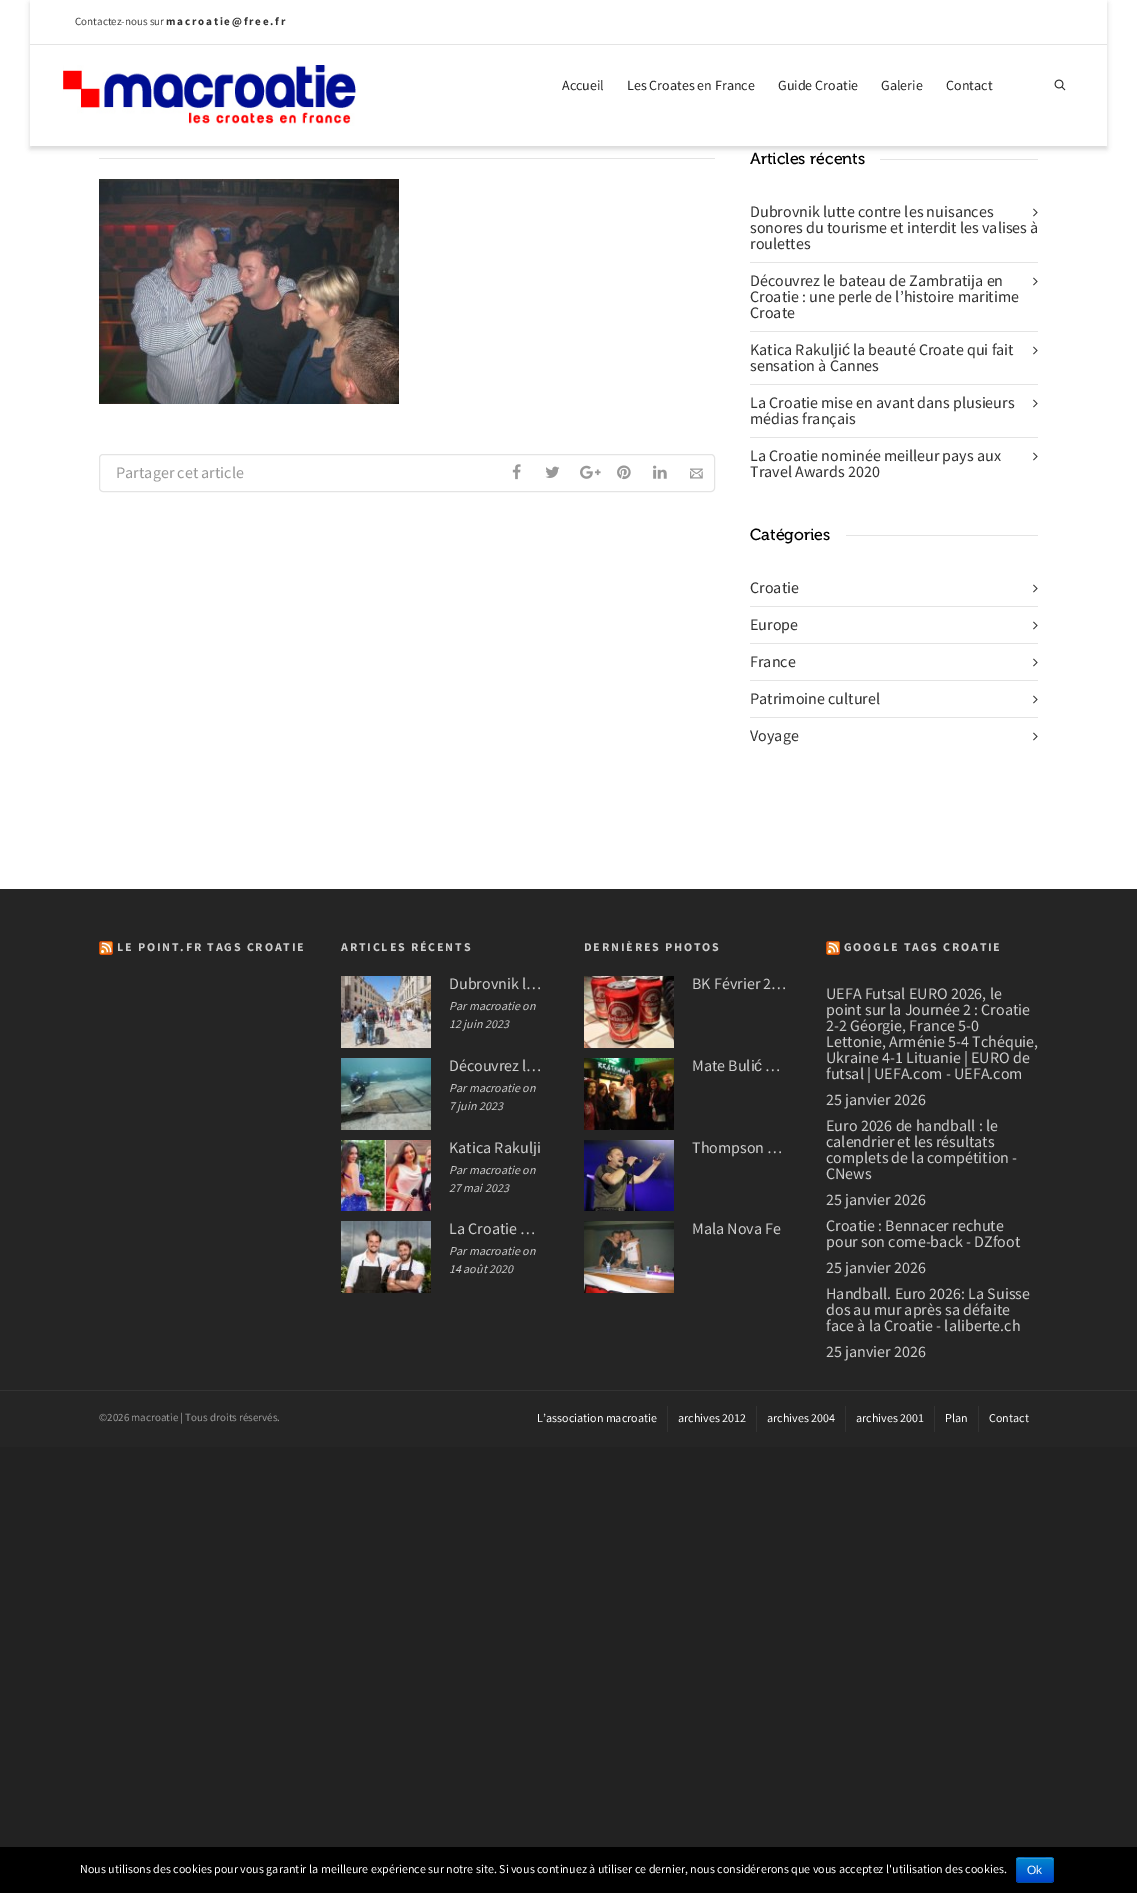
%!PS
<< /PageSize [1137 1893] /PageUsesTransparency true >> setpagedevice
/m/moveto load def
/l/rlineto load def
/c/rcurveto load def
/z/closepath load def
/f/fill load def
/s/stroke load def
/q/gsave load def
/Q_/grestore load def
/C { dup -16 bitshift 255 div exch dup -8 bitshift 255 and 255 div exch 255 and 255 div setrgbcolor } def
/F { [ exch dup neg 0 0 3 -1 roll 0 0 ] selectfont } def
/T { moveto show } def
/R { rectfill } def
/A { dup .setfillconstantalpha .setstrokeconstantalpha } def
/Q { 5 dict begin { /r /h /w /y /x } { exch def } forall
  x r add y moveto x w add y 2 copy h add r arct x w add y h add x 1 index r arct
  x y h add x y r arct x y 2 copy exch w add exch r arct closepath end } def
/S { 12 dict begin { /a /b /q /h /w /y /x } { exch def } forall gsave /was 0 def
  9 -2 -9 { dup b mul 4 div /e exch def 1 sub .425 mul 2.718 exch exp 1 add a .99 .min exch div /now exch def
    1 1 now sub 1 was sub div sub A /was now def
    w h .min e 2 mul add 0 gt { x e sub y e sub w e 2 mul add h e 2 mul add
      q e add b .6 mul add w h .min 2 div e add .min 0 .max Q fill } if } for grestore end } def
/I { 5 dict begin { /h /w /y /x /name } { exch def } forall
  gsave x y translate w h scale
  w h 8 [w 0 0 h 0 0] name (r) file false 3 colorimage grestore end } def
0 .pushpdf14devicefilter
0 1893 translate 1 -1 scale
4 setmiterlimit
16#222222 C
0 0 1137 1893 R
16#FFFFFF C
0 0 1137 889 R
16#000000 C
30 3 1077 146 0 2.5 .1 S
30 3 1077 146 0 2.5 .05 S
16#FFFFFF C
30 0 1077 146 R
16#E4E4E4 C
30 44 1077 1 R
/SourceSansPro-Regular 11 F
16#444444 C
(Contactez-nous sur) 75 25 T
/SourceSansPro-Bold 11 F
16#333333 C
166 25 m 1.8 0 (macroatie@free.fr) ashow
(1.rgb) 63 65 293 61 I
/SourceSansPro-Regular 14 F
16#252525 C
(Accueil) 562 90 T
(Les Croates en France) 627 90 T
(Guide Croatie) 778 90 T
(Galerie) 881 90 T
(Contact) 946 90 T
(2.rgb) 1054 79 12 12 I
16#E4E4E4 C
99 158 616 1 R
(3.rgb) 99 179 300 225 I
99.5 454.5 615 37 3.5 Q s
/SourceSansPro-Regular 16 F
16#999999 C
(Partager cet article) 116 478 T
(4.rgb) 512 464 9 16 I
(5.rgb) 545 466 15 12 I
(6.rgb) 580 465 21 14 I
(7.rgb) 617 465 14 15 I
(8.rgb) 653 465 14 14 I
(9.rgb) 690 468 13 11 I
/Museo-Regular 16 F
16#000000 C
(Articles récents) 750 164 T
16#E4E4E4 C
880 159 158 1 R
/SourceSansPro-Regular 16 F
16#333333 C
(Dubrovnik lutte contre les nuisances) 750 217 T
(10.rgb) 1033 208 5 9 I
(sonores du tourisme et interdit les valises à) 750 233 T
(roulettes) 750 249 T
16#E4E4E4 C
750 262 288 1 R
16#333333 C
(Découvrez le bateau de Zambratija en) 750 286 T
(10.rgb) 1033 277 5 9 I
(Croatie : une perle de l’histoire maritime) 750 302 T
(Croate) 750 318 T
16#E4E4E4 C
750 331 288 1 R
16#333333 C
(Katica Rakulji) 750 355 T
/LiberationSans-Regular 16 F
(ć) 842 355 T
/SourceSansPro-Regular 16 F
(la beauté Croate qui fait) 853 355 T
(10.rgb) 1033 346 5 9 I
(sensation à Cannes) 750 371 T
16#E4E4E4 C
750 384 288 1 R
16#333333 C
(La Croatie mise en avant dans plusieurs) 750 408 T
(10.rgb) 1033 399 5 9 I
(médias français) 750 424 T
16#E4E4E4 C
750 437 288 1 R
16#333333 C
(La Croatie nominée meilleur pays aux) 750 461 T
(10.rgb) 1033 452 5 9 I
(Travel Awards 2020) 750 477 T
/Museo-Regular 16 F
16#000000 C
(Catégories) 750 540 T
16#E4E4E4 C
846 535 192 1 R
/SourceSansPro-Regular 16 F
16#333333 C
(Croatie) 750 593 T
(10.rgb) 1033 584 5 9 I
16#E4E4E4 C
750 606 288 1 R
16#333333 C
(Europe) 750 630 T
(10.rgb) 1033 621 5 9 I
16#E4E4E4 C
750 643 288 1 R
16#333333 C
(France) 750 667 T
(10.rgb) 1033 658 5 9 I
16#E4E4E4 C
750 680 288 1 R
16#333333 C
(Patrimoine culturel) 750 704 T
(10.rgb) 1033 695 5 9 I
16#E4E4E4 C
750 717 288 1 R
16#333333 C
(Voyage) 750 741 T
(10.rgb) 1033 732 5 9 I
16#252525 C
0 889 1137 501 R
(11.rgb) 99 941 14 14 I
/SourceSansPro-Bold 12 F
16#CCCCCC C
117 951 m 1.8 0 (LE POINT.FR TAGS CROATIE) ashow
341 951 m 1.8 0 (ARTICLES RÉCENTS) ashow
(12.rgb) 341 976 90 72 I
/SourceSansPro-Regular 16 F
(Dubrovnik l…) 449 989 T
/SourceSansPro-Italic 12 F
(Par macroatie on) 449 1010 T
(12 juin 2023) 449 1028 T
(13.rgb) 341 1058 90 72 I
/SourceSansPro-Regular 16 F
(Découvrez l…) 449 1071 T
/SourceSansPro-Italic 12 F
(Par macroatie on) 449 1092 T
(7 juin 2023) 449 1110 T
(14.rgb) 341 1140 90 71 I
q
449 1140 95 16 rectclip
/SourceSansPro-Regular 16 F
(Katica Rakulji) 449 1153 T
Q_
(Par macroatie on) 449 1174 T
(27 mai 2023) 449 1192 T
(15.rgb) 341 1221 90 72 I
/SourceSansPro-Regular 16 F
(La Croatie …) 449 1234 T
/SourceSansPro-Italic 12 F
(Par macroatie on) 449 1255 T
(14 août 2020) 449 1273 T
/SourceSansPro-Bold 12 F
584 951 m 1.8 0 (DERNIÈRES PHOTOS) ashow
(16.rgb) 584 976 90 72 I
/SourceSansPro-Regular 16 F
(BK Février 2…) 692 989 T
(17.rgb) 584 1058 90 72 I
(Mate Buli) 692 1071 T
/LiberationSans-Regular 16 F
(ć) 754 1071 T
/SourceSansPro-Regular 16 F
(…) 765 1071 T
(18.rgb) 584 1140 90 71 I
(Thompson …) 692 1153 T
(19.rgb) 584 1221 90 72 I
(Mala Nova Fe) 692 1234 T
(11.rgb) 826 941 14 14 I
/SourceSansPro-Bold 12 F
844 951 m 1.8 0 (GOOGLE TAGS CROATIE) ashow
/SourceSansPro-Regular 16 F
(UEFA Futsal EURO 2026, le) 826 999 T
(point sur la Journée 2 : Croatie) 826 1015 T
(2-2 Géorgie, France 5-0) 826 1031 T
(Lettonie, Arménie 5-4 Tchéquie,) 826 1047 T
(Ukraine 4-1 Lituanie | EURO de) 826 1063 T
(futsal | UEFA.com - UEFA.com) 826 1079 T
(25 janvier 2026) 826 1105 T
(Euro 2026 de handball : le) 826 1131 T
(calendrier et les résultats) 826 1147 T
(complets de la compétition -) 826 1163 T
(CNews) 826 1179 T
(25 janvier 2026) 826 1205 T
(Croatie : Bennacer rechute) 826 1231 T
(pour son come-back - DZfoot) 826 1247 T
(25 janvier 2026) 826 1273 T
(Handball. Euro 2026: La Suisse) 826 1299 T
(dos au mur après sa défaite) 826 1315 T
(face à la Croatie - laliberte.ch) 826 1331 T
(25 janvier 2026) 826 1357 T
16#252525 C
0 1391 1137 56 R
16#333333 C
0 1390 1137 1 R
/SourceSansPro-Regular 11 F
16#999999 C
(©2026 macroatie | Tous droits réservés.) 99 1421 T
/SourceSansPro-Regular 12 F
16#FFFFFF C
(L’association macroatie) 537 1422 T
16#333333 C
667 1406 1 26 R
16#FFFFFF C
(archives 2012) 678 1422 T
16#333333 C
756 1406 1 26 R
16#FFFFFF C
(archives 2004) 767 1422 T
16#333333 C
845 1406 1 26 R
16#FFFFFF C
(archives 2001) 856 1422 T
16#333333 C
934 1406 1 26 R
16#FFFFFF C
(Plan) 945 1422 T
16#333333 C
978 1406 1 26 R
16#FFFFFF C
(Contact) 989 1422 T
16#000000 C
0 1847 1137 46 R
16#FFFFFF C
(Nous utilisons des cookies pour vous garantir la meilleure expérience sur notre site. Si vous continuez à utiliser ce dernier, nous considérerons que vous acceptez l'utilisation des cookies.) 80 1873 T
16#006DCC C
1016 1857 38 26 3 Q f
q
1016 1857 38 26 3 Q clip newpath
q 1016 1858 m 38 0 l 0 24 l -38 0 l z clip newpath
<< /ShadingType 2 /ColorSpace /DeviceRGB /Coords [1035 1858 1035 1882] /Extend [true true] /Function << /FunctionType 2 /Domain [0 1] /C0 [0 .533 .8] /C1 [0 .267 .8] /N 1 >> >> shfill Q_
Q_
0.2 A
16#FFFFFF C
1019 1859 m 32 0 l 1 0 2 1 2 2 c 0 -4.5 -3.5 -3 -7.5 -3 c -21 0 l -4 0 -7.5 -1.5 -7.5 3 c 0 -1 1 -2 2 -2 c z f
0.25 A
16#000000 C
1053 1882 m -.5 0 -1.5 .5 -2 .5 c -32 0 l -.5 0 -1.5 -.5 -2 -.5 c s
0.1 A
1017 1882 m 0 -.5 -.5 -1.5 -.5 -2 c 0 -20 l 0 -.5 .5 -1.5 .5 -2 c .5 0 1.5 -.5 2 -.5 c 32 0 l .5 0 1.5 .5 2 .5 c 0 .5 .5 1.5 .5 2 c 0 20 l 0 .5 -.5 1.5 -.5 2 c s
/LiberationSans-Regular 12 F
1 A
16#FFFFFF C
(Ok) 1027 1874 T
.poppdf14devicefilter showpage
